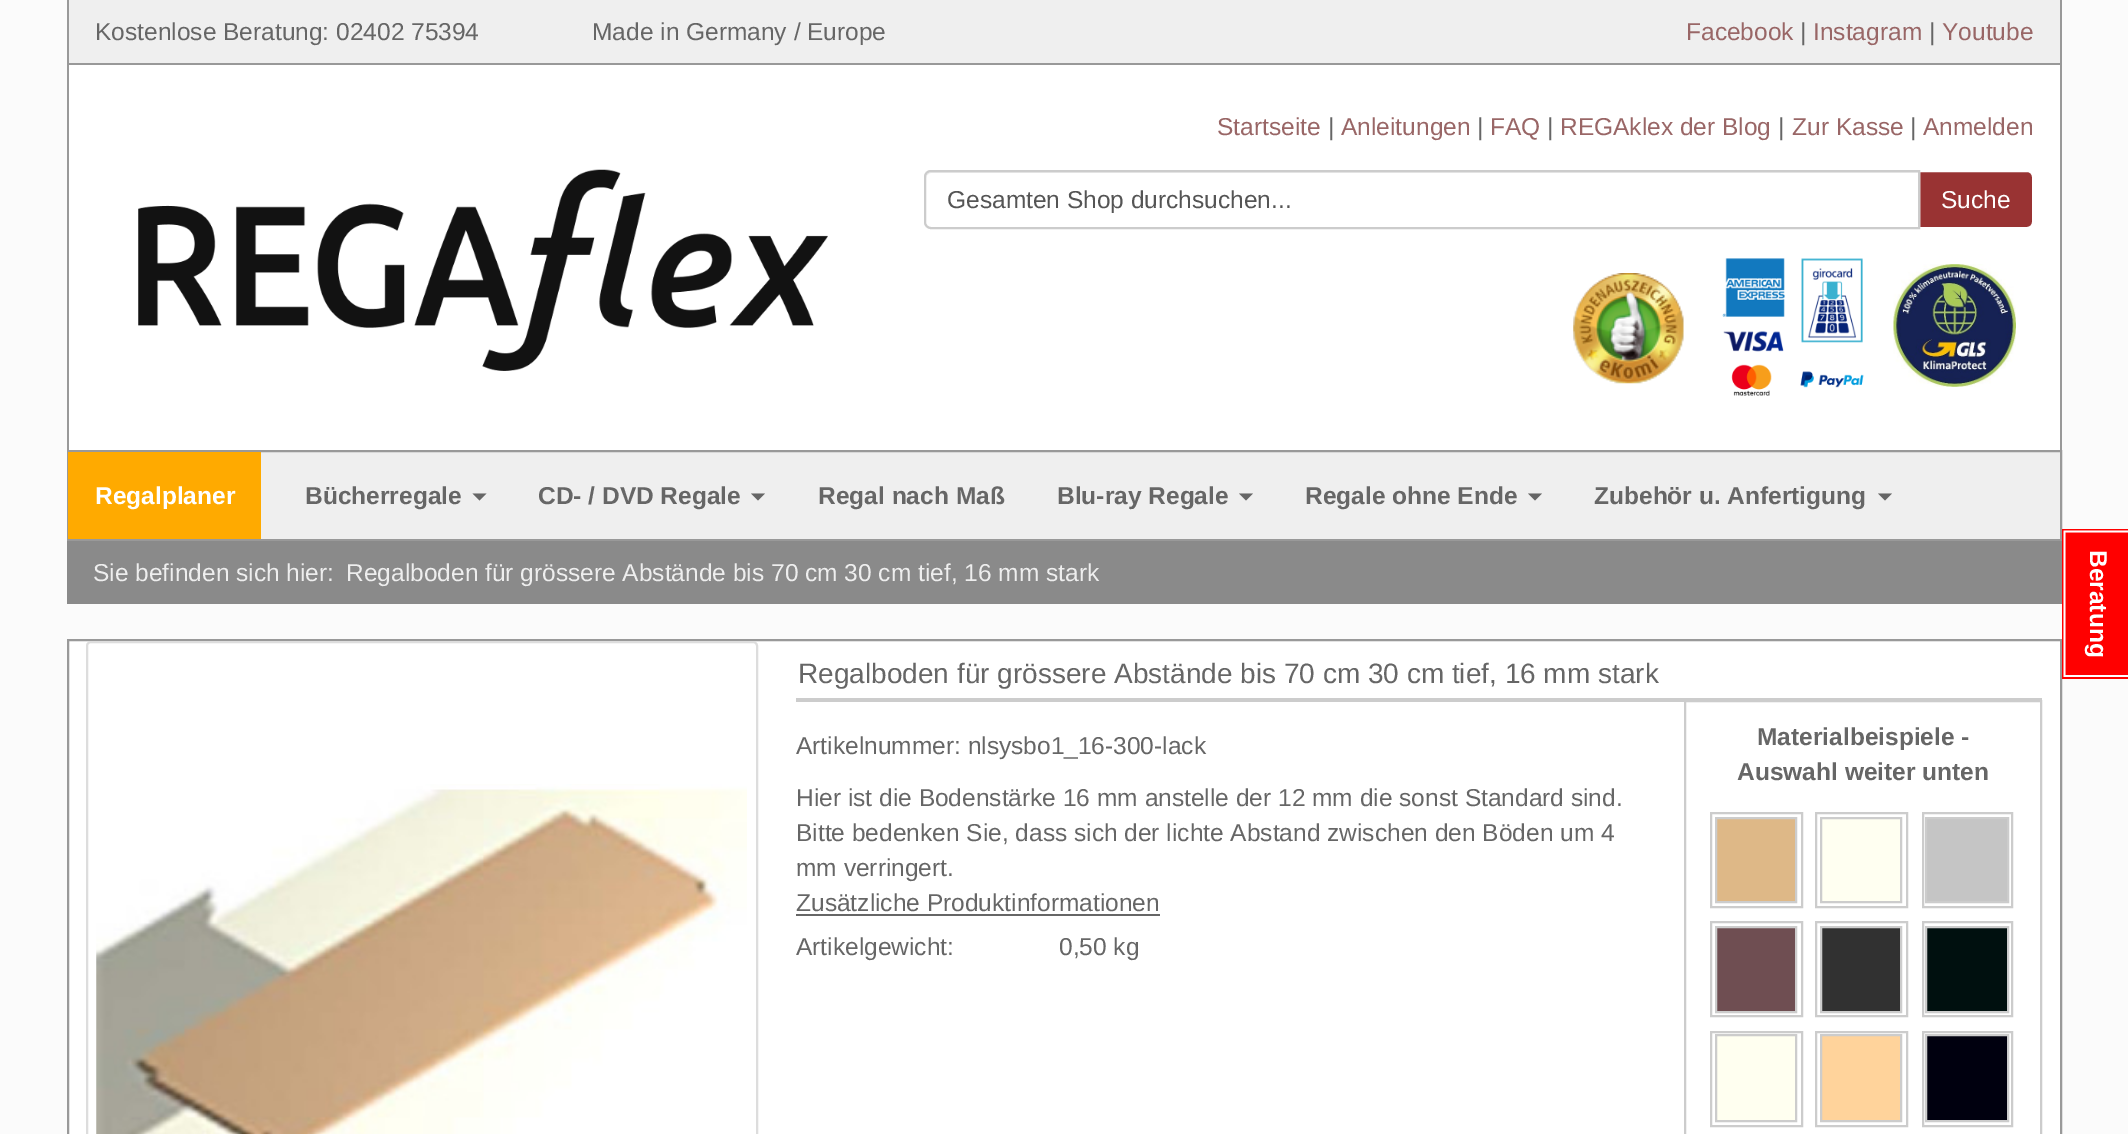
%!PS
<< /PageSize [2128 1134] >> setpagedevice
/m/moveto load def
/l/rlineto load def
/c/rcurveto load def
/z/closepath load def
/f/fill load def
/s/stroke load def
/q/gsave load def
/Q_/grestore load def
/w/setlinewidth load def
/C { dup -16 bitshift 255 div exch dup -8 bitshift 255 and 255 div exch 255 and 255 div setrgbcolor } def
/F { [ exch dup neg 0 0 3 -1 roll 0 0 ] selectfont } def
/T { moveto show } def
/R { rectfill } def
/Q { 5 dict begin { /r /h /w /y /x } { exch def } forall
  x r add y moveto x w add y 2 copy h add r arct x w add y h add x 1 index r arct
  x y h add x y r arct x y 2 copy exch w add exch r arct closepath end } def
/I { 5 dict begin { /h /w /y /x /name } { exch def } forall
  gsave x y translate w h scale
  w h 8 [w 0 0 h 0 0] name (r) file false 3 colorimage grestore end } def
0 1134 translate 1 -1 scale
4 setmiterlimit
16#FBFBFB C
0 0 2128 1134 R
16#EFEFEF C
69 0 1991 63 R
16#999999 C
2060 0 2 450 R
67 63 1995 2 R
67 0 2 65 R
/LiberationSans-Regular 24.5 F
16#666666 C
(Kostenlose Beratung: 02402 75394) 95 40 T
(Made in Germany / Europe) 592 40 T
16#996666 C
(Facebook) 1686 40 T
16#666666 C
(|) 1800 40 T
16#996666 C
(Instagram) 1813 40 T
16#666666 C
(|) 1929 40 T
16#996666 C
(Youtube) 1942 40 T
16#FFFFFF C
69 65 1991 385 R
16#999999 C
67 65 2 385 R
(1.rgb) 138 169 690 202 I
16#996666 C
(Startseite) 1217 135 T
16#666666 C
(|) 1328 135 T
16#996666 C
(Anleitungen) 1341 135 T
16#666666 C
(|) 1477 135 T
16#996666 C
(FAQ) 1490 135 T
16#666666 C
(|) 1547 135 T
16#996666 C
(REGAklex der Blog) 1560 135 T
16#666666 C
(|) 1778 135 T
16#996666 C
(Zur Kasse) 1792 135 T
16#666666 C
(|) 1910 135 T
16#996666 C
(Anmelden) 1923 135 T
16#ECECEC C
931 173 m 987 0 l 0 -1 l -987 0 l -3 0 -5 3 -5 6 c 0 -2 2 -5 5 -5 c z f
16#993333 C
1919 171 m 108 0 l 3.5 0 6 2.5 6 6 c 0 45 l 0 3.5 -2.5 6 -6 6 c -108 0 l z q f Q_
16#FFFFFF C
2 w
s
16#CCCCCC C
931 171 m 988 0 l 0 57 l -988 0 l -3.5 0 -6 -2.5 -6 -6 c 0 -45 l 0 -3.5 2.5 -6 6 -6 c z s
16#555555 C
(Gesamten Shop durchsuchen...) 947 208 T
16#FFFFFF C
(Suche) 1941 208 T
(2.rgb) 1573 273 111 111 I
(3.rgb) 1722 258 142 138 I
(4.rgb) 1893 264 123 123 I
16#EFEFEF C
261 452 1799 87 R
16#999999 C
68 451 1993 89 rectstroke
16#FFAA00 C
68 452 193 87 R
/LiberationSans-Bold 24.5 F
16#FFFFFF C
(Regalplaner) 95 504 T
16#666666 C
(Bücherregale) 305 504 T
472.5 493.5 m 14 0 l -7 7 l z f
(CD- / DVD Regale) 538 504 T
751 493.5 m 14 0 l -7 7 l z f
(Regal nach Maß) 818 504 T
(Blu-ray Regale) 1057 504 T
1239 493.5 m 14 0 l -7 7 l z f
(Regale ohne Ende) 1305 504 T
1528 493.5 m 14 0 l -7 7 l z f
(Zubehör u. Anfertigung) 1594 504 T
1878 493.5 m 14 0 l -7 7 l z f
16#8A8A8A C
67 541 1995 63 R
/LiberationSans-Regular 24.5 F
16#EEEEEE C
(Sie befinden sich hier:) 93 581 T
(Regalboden für grössere Abstände bis 70 cm 30 cm tief, 16 mm stark) 346 581 T
16#FFFFFF C
68 640 m 1993 0 l 0 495 l -1993 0 l z q f Q_
16#999999 C
s
16#DDDDDD C
87 642 670 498 4 Q s
(5.rgb) 96 784 651 350 I
16#CCCCCC C
796 698 1246 4 R
/LiberationSans-Regular 28 F
16#666666 C
(Regalboden für grössere Abstände bis 70 cm 30 cm tief, 16 mm stark) 798 683 T
/LiberationSans-Regular 24.5 F
(Artikelnummer: nlsysbo1_16-300-lack) 796 754 T
(Hier ist die Bodenstärke 16 mm anstelle der 12 mm die sonst Standard sind.) 796 806 T
(Bitte bedenken Sie, dass sich der lichte Abstand zwischen den Böden um 4) 796 841 T
(mm verringert.) 796 876 T
(Zusätzliche Produktinformationen) 796 911 T
796 914 364 2 R
(Artikelgewicht:) 796 955 T
(0,50 kg) 1059 955 T
16#CCCCCC C
1685 701 356 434 rectstroke
/LiberationSans-Bold 24.5 F
16#666666 C
(Materialbeispiele -) 1757 745 T
(Auswahl weiter unten) 1737 780 T
16#CCCCCC C
1711 813 91 94 rectstroke
16#DEB887 C
1716 818 m 80 0 l 0 84 l -80 0 l z q f Q_
16#CCCCCC C
s
1816 813 91 94 rectstroke
16#FFFFF1 C
1821 818 m 80 0 l 0 84 l -80 0 l z q f Q_
16#CCCCCC C
s
1923 813 89 94 rectstroke
16#C5C5C5 C
1926 818 m 82 0 l 0 84 l -82 0 l z q f Q_
16#CCCCCC C
s
1711 922 91 94 rectstroke
16#6F4E52 C
1716 927 m 80 0 l 0 85 l -80 0 l z q f Q_
16#CCCCCC C
s
1816 922 91 94 rectstroke
16#313131 C
1821 927 m 80 0 l 0 85 l -80 0 l z q f Q_
16#CCCCCC C
s
1923 922 89 94 rectstroke
16#00100F C
1926 927 m 82 0 l 0 85 l -82 0 l z q f Q_
16#CCCCCC C
s
1711 1032 91 94 rectstroke
16#FFFFF0 C
1716 1035 m 80 0 l 0 86 l -80 0 l z q f Q_
16#CCCCCC C
s
1816 1032 91 94 rectstroke
16#FFD39B C
1821 1035 m 80 0 l 0 86 l -80 0 l z q f Q_
16#CCCCCC C
s
1923 1032 89 94 rectstroke
16#00000F C
1926 1035 m 82 0 l 0 86 l -82 0 l z q f Q_
16#CCCCCC C
s
16#FF0000 C
2062 529 66 150 R
16#FFFFFF C
1.8 w
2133 531.5 m 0 144.5 l -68.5 0 l 0 -144.5 l z s
q 2090 550 translate 90 rotate 0 0 m (Beratung) show Q_
showpage
